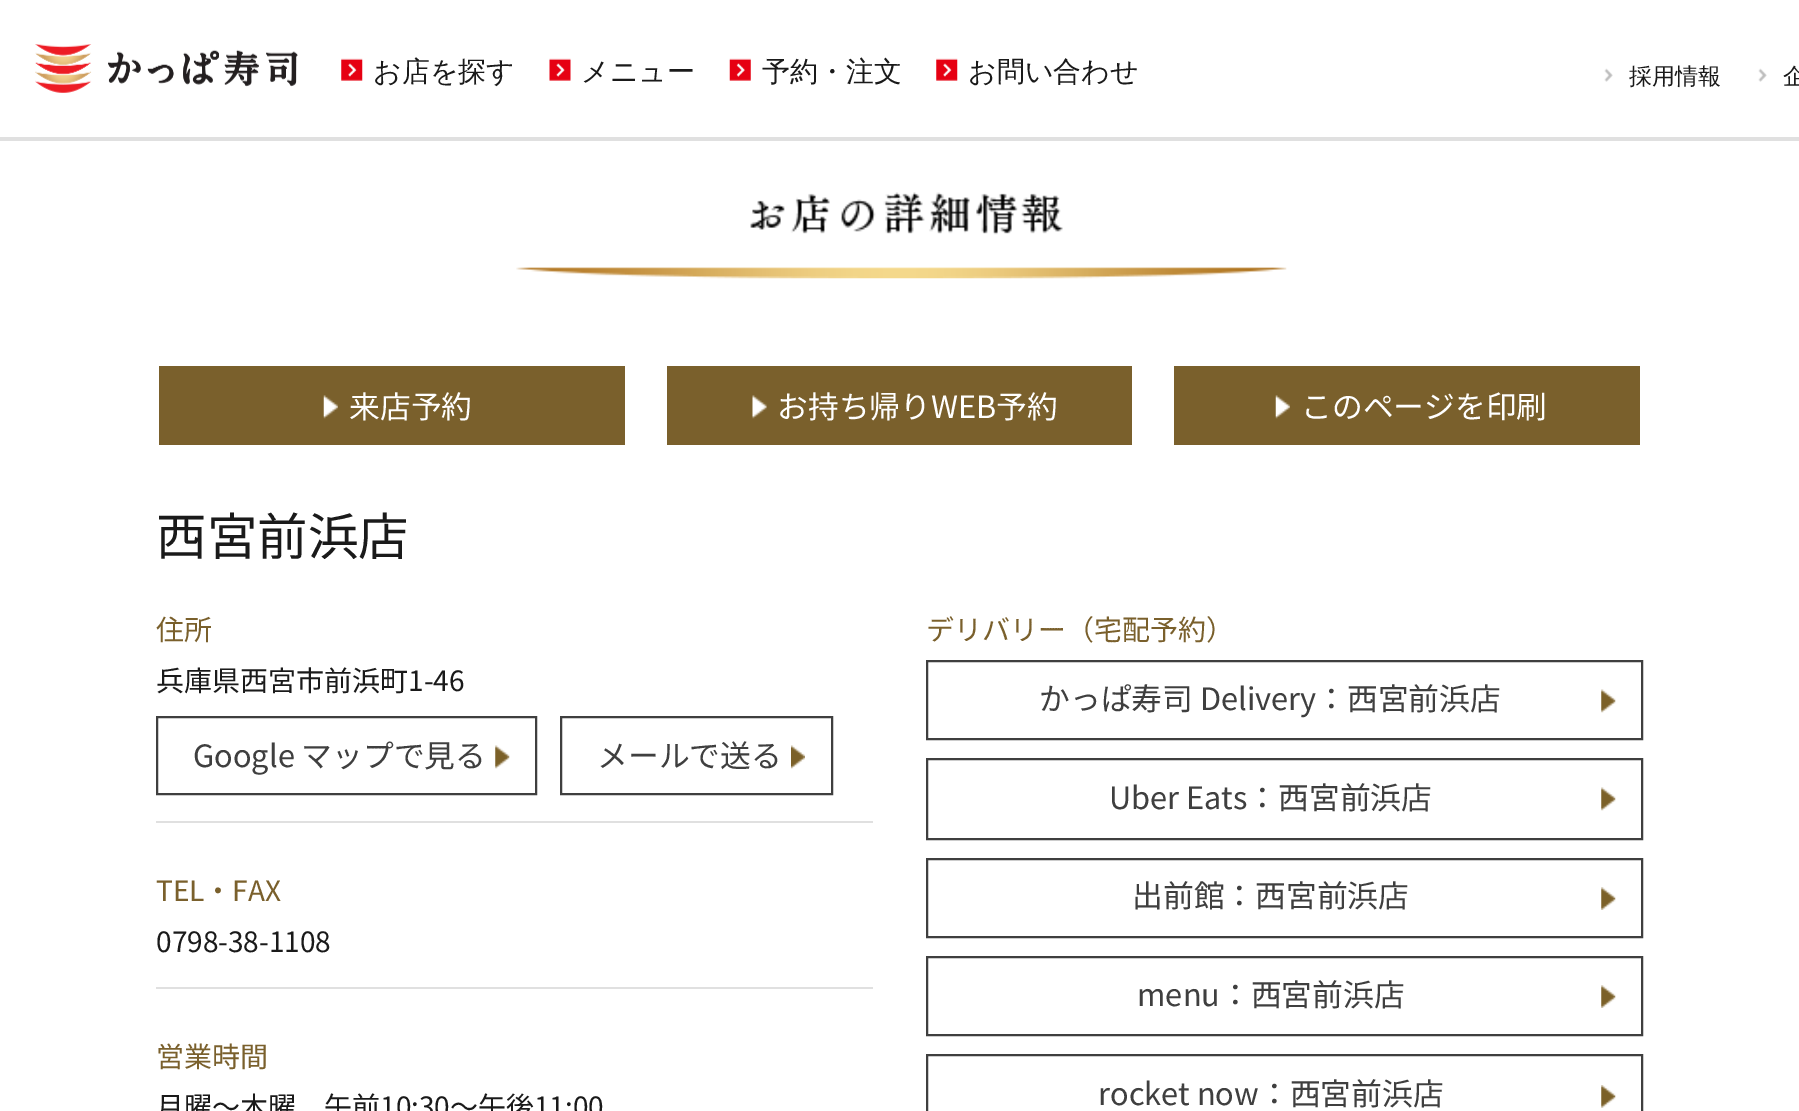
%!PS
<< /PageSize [1799 1111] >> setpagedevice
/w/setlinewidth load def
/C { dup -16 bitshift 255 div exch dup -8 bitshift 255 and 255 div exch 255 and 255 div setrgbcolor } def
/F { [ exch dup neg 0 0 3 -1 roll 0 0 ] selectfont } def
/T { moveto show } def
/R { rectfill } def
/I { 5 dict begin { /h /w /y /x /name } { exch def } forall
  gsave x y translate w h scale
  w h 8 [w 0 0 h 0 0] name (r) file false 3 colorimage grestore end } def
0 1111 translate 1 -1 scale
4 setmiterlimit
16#FFFFFF C
0 0 1799 1111 R
16#E0E0E0 C
0 137 1799 4 R
(1.rgb) 35 44 263 49 I
(2.rgb) 341 58 22 23 I
/WenQuanYiZenHei-Medium 28 F
16#1A1A1A C
(お店を探す) 373 81 T
(3.rgb) 549 58 22 23 I
(メニュー) 581 81 T
(4.rgb) 729 58 22 23 I
(予約・注文) 762 81 T
(5.rgb) 936 58 22 23 I
(お問い合わせ) 968 81 T
(6.rgb) 1604 68 9 14 I
/WenQuanYiZenHei-Medium 23 F
(採用情報) 1629 84 T
(6.rgb) 1758 68 9 14 I
(企) 1783 84 T
(7.rgb) 516 192 771 87 I
16#7A602C C
159 366 466 79 R
(8.rgb) 323 395 15 24 I
/NotoSansJP-Regular 30.75 F
16#FFFFFF C
(来店予約) 349 418 T
16#7A602C C
667 366 465 79 R
(9.rgb) 752 395 15 24 I
16#FFFFFF C
(お持ち帰りWEB予約) 777 418 T
16#7A602C C
1174 366 466 79 R
(8.rgb) 1275 395 15 24 I
16#FFFFFF C
(このページを印刷) 1301 418 T
/NotoSansJP-Regular 50.5 F
16#1A1A1A C
(西宮前浜店) 156 555 T
/NotoSansJP-Regular 28 F
16#7A602C C
(住所) 156 640 T
16#E0E0E0 C
156 821 717 2 R
16#1A1A1A C
(兵庫県西宮市前浜町1-46) 156 691 T
16#3F3F3F C
2 w
157 717 379 77 rectstroke
/NotoSansJP-Regular 30.75 F
(Google マップで見る) 193 767 T
(10.rgb) 495 745 15 24 I
561 717 271 77 rectstroke
(メールで送る) 597 767 T
(11.rgb) 791 745 14 24 I
/NotoSansJP-Regular 28 F
16#7A602C C
(TEL・FAX) 156 901 T
16#E0E0E0 C
156 987 717 2 R
16#1A1A1A C
(0798-38-1108) 156 952 T
16#7A602C C
(営業時間) 156 1067 T
16#1A1A1A C
(月曜～木曜　午前10:30～午後11:00) 156 1117 T
16#7A602C C
(デリバリー（宅配予約）) 926 640 T
16#3F3F3F C
927 661 715 78 rectstroke
/NotoSansJP-Regular 30.75 F
(かっぱ寿司 Delivery：西宮前浜店) 1039 710 T
(12.rgb) 1601 689 15 24 I
927 759 715 80 rectstroke
(Uber Eats：西宮前浜店) 1109 809 T
(12.rgb) 1601 787 15 24 I
927 859 715 78 rectstroke
(出前館：西宮前浜店) 1132 907 T
(13.rgb) 1601 887 15 23 I
927 957 715 78 rectstroke
(menu：西宮前浜店) 1137 1006 T
(13.rgb) 1601 985 15 23 I
927 1055 715 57 rectstroke
(rocket now：西宮前浜店) 1098 1105 T
(14.rgb) 1601 1085 15 23 I
showpage
